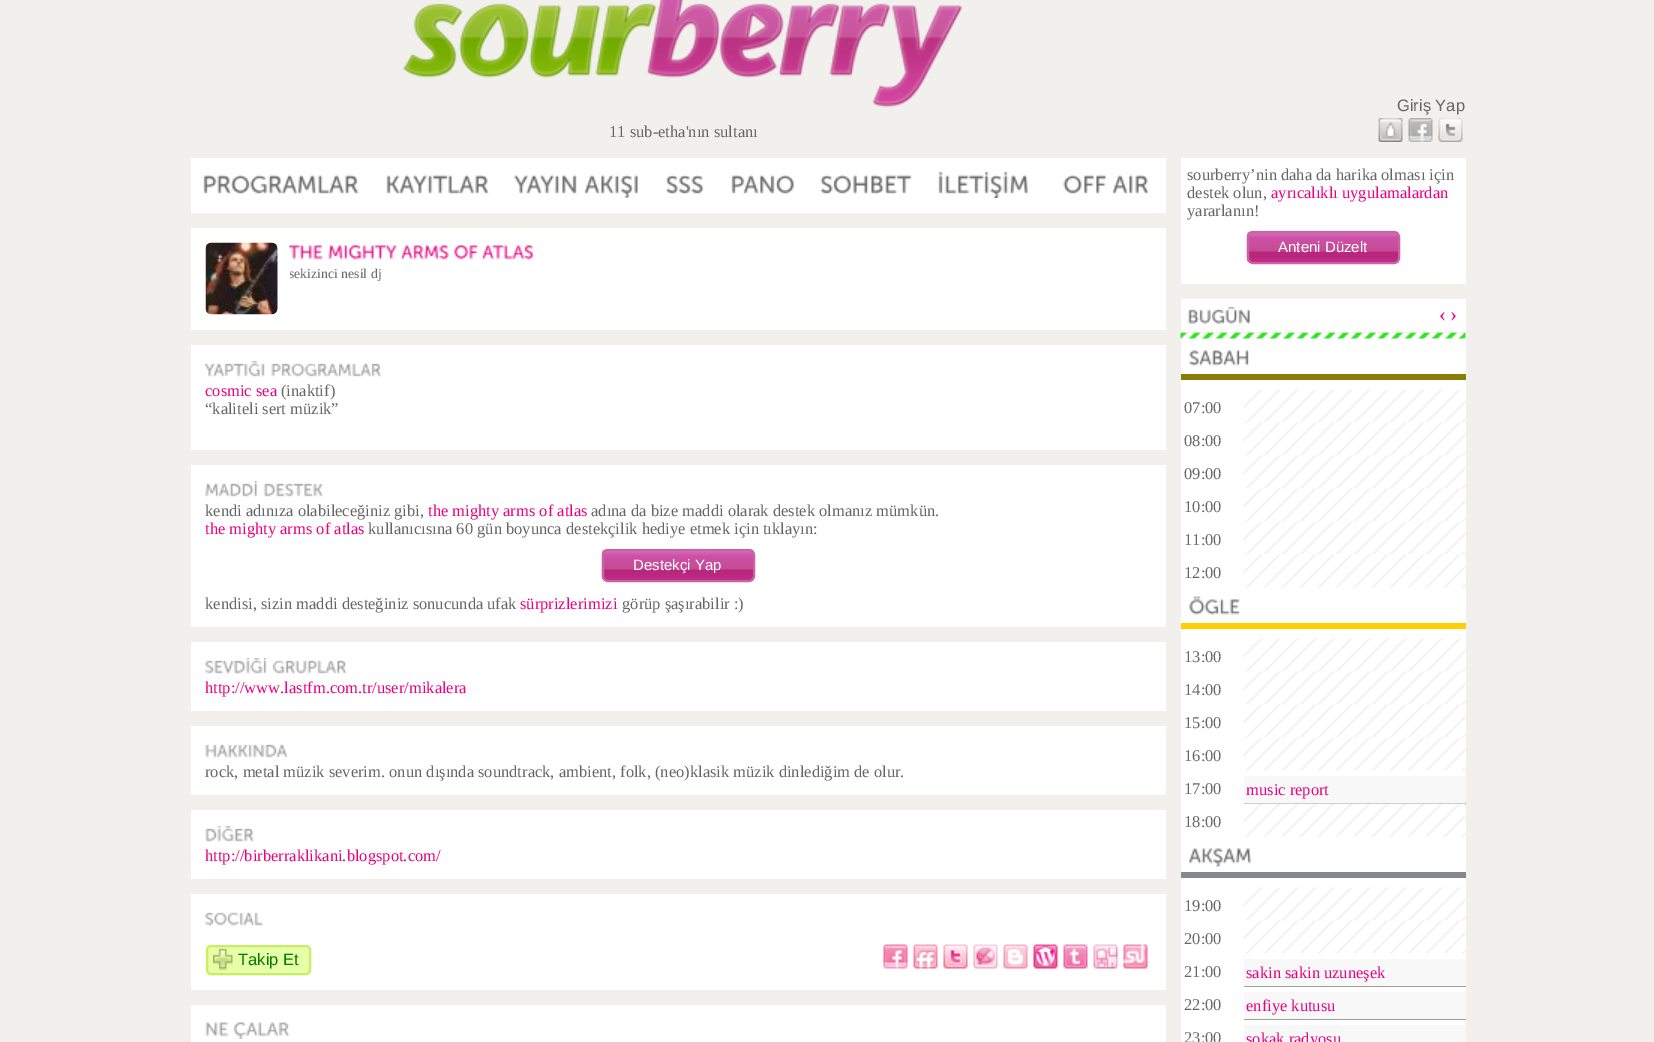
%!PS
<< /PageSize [1654 1042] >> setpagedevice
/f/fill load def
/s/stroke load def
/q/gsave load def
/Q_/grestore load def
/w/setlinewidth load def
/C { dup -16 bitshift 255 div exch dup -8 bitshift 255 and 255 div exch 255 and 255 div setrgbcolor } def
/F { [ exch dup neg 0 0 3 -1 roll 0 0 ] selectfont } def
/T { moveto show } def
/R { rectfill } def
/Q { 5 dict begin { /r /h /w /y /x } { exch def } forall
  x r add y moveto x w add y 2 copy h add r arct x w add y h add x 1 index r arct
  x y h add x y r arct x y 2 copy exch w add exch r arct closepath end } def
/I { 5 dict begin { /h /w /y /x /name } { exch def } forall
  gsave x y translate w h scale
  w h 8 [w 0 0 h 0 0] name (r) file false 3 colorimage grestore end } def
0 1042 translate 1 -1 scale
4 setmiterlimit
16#F2F0EC C
0 0 1654 1042 R
/LiberationSans-Regular 16.5 F
16#666666 C
(Giriş Yap) 1397 111 T
(1.rgb) 1378 118 25 24 I
(2.rgb) 1408 118 25 24 I
(3.rgb) 1438 118 25 24 I
(4.rgb) 403 0 560 108 I
/LiberationSerif-Regular 16.5 F
(11 sub-etha'nın sultanı) 609 137 T
16#FFFFFF C
191 158 975 55 R
(5.rgb) 203 174 156 20 I
(6.rgb) 386 174 103 20 I
(7.rgb) 514 174 63 20 I
(8.rgb) 584 174 54 24 I
(9.rgb) 665 175 39 19 I
(10.rgb) 731 174 63 20 I
(11.rgb) 820 174 93 20 I
(12.rgb) 938 172 90 26 I
(13.rgb) 1063 174 43 20 I
(14.rgb) 1112 174 37 20 I
191 228 975 102 R
(15.rgb) 205 242 73 73 I
(16.rgb) 289 245 34 15 I
(17.rgb) 328 245 69 15 I
(18.rgb) 400 245 49 15 I
(19.rgb) 454 245 24 15 I
(20.rgb) 481 245 53 15 I
q
290 266 91 15 rectclip
/LiberationSerif-Regular 13.75 F
16#666666 C
(sekizinci nesil dj) 289 278 T
Q_
191 345 975 105 R
(21.rgb) 204 361 61 16 I
(22.rgb) 271 363 111 14 I
16#E90280 C
(cosmic sea) 205 396 T
16#666666 C
(\(inaktif\)) 281 396 T
(“kaliteli sert müzik”) 205 414 T
16#FFFFFF C
191 465 975 162 R
(23.rgb) 205 481 52 16 I
(24.rgb) 263 483 60 14 I
16#666666 C
(kendi adınıza olabileceğiniz gibi,) 205 516 T
16#E90280 C
(the mighty arms of atlas) 428 516 T
16#666666 C
(adına da bize maddi olarak destek olmanız mümkün.) 591 516 T
16#E90280 C
(the mighty arms of atlas) 205 534 T
16#666666 C
(kullanıcısına 60 gün boyunca destekçilik hediye etmek için tıklayın:) 368 534 T
(25.rgb) 601 548 154 34 I
16#C962A7 C
2 w
603 550 151 31 5 Q s
/LiberationSans-Regular 15 F
16#FFFFFF C
(Destekçi Yap) 633 570 T
/LiberationSerif-Regular 16.5 F
16#666666 C
(kendisi, sizin maddi desteğiniz sonucunda ufak) 205 609 T
16#E90280 C
(sürprizlerimizi) 520 609 T
16#666666 C
(görüp şaşırabilir :\)) 622 609 T
16#FFFFFF C
191 642 975 69 R
(26.rgb) 205 658 62 16 I
(27.rgb) 272 660 75 14 I
16#E90280 C
(http://www.lastfm.com.tr/user/mikalera) 205 693 T
16#FFFFFF C
191 726 975 69 R
(28.rgb) 205 744 83 14 I
16#666666 C
(rock, metal müzik severim. onun dışında soundtrack, ambient, folk, \(neo\)klasik müzik dinlediğim de olur.) 205 777 T
16#FFFFFF C
191 810 975 69 R
(29.rgb) 205 826 49 16 I
16#E90280 C
(http://birberraklikani.blogspot.com/) 205 861 T
16#FFFFFF C
191 894 975 96 R
(30.rgb) 205 912 58 14 I
16#E8FFA9 C
207 946 103 28 4 Q q f Q_
16#C7EF60 C
s
(31.rgb) 213 948 20 23 I
/LiberationSans-Regular 16.5 F
16#037C00 C
(Takip Et) 238 965 T
(32.rgb) 883 944 25 25 I
(33.rgb) 913 944 25 25 I
(34.rgb) 943 944 25 25 I
(35.rgb) 973 944 25 25 I
(36.rgb) 1003 944 25 25 I
(37.rgb) 1033 944 25 25 I
(38.rgb) 1063 944 25 25 I
(39.rgb) 1093 944 25 25 I
(40.rgb) 1123 944 25 25 I
16#FFFFFF C
191 1005 975 37 R
(41.rgb) 205 1022 24 15 I
(42.rgb) 233 1022 57 17 I
1181 158 285 126 R
/LiberationSerif-Regular 16.5 F
16#666666 C
(sourberry’nin daha da harika olması için) 1187 180 T
(destek olun,) 1187 198 T
16#E90280 C
(ayrıcalıklı uygulamalardan) 1271 198 T
16#666666 C
(yararlanın!) 1187 216 T
(43.rgb) 1246 230 154 34 I
16#C962A7 C
1248 232 151 31 5 Q s
/LiberationSans-Regular 15 F
16#FFFFFF C
(Anteni Düzelt) 1278 252 T
1181 299 285 40 R
(44.rgb) 1187 307 63 17 I
/LiberationSerif-Regular 21 F
16#E90280 C
(‹) 1439 321 T
(›) 1450 321 T
(45.rgb) 1180 332 286 7 I
16#FFFFFF C
1181 339 285 703 R
(46.rgb) 1189 350 60 16 I
16#887D09 C
1181 374 285 6 R
/LiberationSerif-Regular 16.5 F
16#666666 C
(07:00) 1184 413 T
(47.rgb) 1243 389 223 34 I
(08:00) 1184 446 T
(48.rgb) 1243 422 223 34 I
(09:00) 1184 479 T
(48.rgb) 1243 455 223 34 I
(10:00) 1184 512 T
(49.rgb) 1243 488 223 34 I
(11:00) 1184 545 T
(48.rgb) 1243 521 223 34 I
(12:00) 1184 578 T
(48.rgb) 1243 554 223 34 I
(50.rgb) 1189 596 51 19 I
16#FFCF04 C
1181 623 285 6 R
16#666666 C
(13:00) 1184 662 T
(51.rgb) 1243 638 223 34 I
(14:00) 1184 695 T
(48.rgb) 1243 671 223 34 I
(15:00) 1184 728 T
(48.rgb) 1243 704 223 34 I
(16:00) 1184 761 T
(48.rgb) 1243 737 223 34 I
(17:00) 1184 794 T
16#F8F8F8 C
1244 776 222 27 R
16#A0A0A0 C
1244 803 222 2 R
16#E90280 C
(music report) 1246 795 T
16#666666 C
(18:00) 1184 827 T
(52.rgb) 1243 803 223 34 I
(53.rgb) 1188 848 64 19 I
16#84898D C
1181 872 285 6 R
16#666666 C
(19:00) 1184 911 T
(47.rgb) 1243 887 223 34 I
(20:00) 1184 944 T
(48.rgb) 1243 920 223 34 I
(21:00) 1184 977 T
16#F8F8F8 C
1244 959 222 27 R
16#A0A0A0 C
1244 986 222 1 R
16#E90280 C
(sakin sakin uzuneşek) 1246 978 T
16#666666 C
(22:00) 1184 1010 T
16#F8F8F8 C
1244 992 222 27 R
16#A0A0A0 C
1244 1019 222 1 R
16#E90280 C
(enfiye kutusu) 1246 1011 T
16#666666 C
(23:00) 1184 1043 T
16#F8F8F8 C
1244 1025 222 17 R
16#E90280 C
(sokak radyosu) 1246 1044 T
showpage
